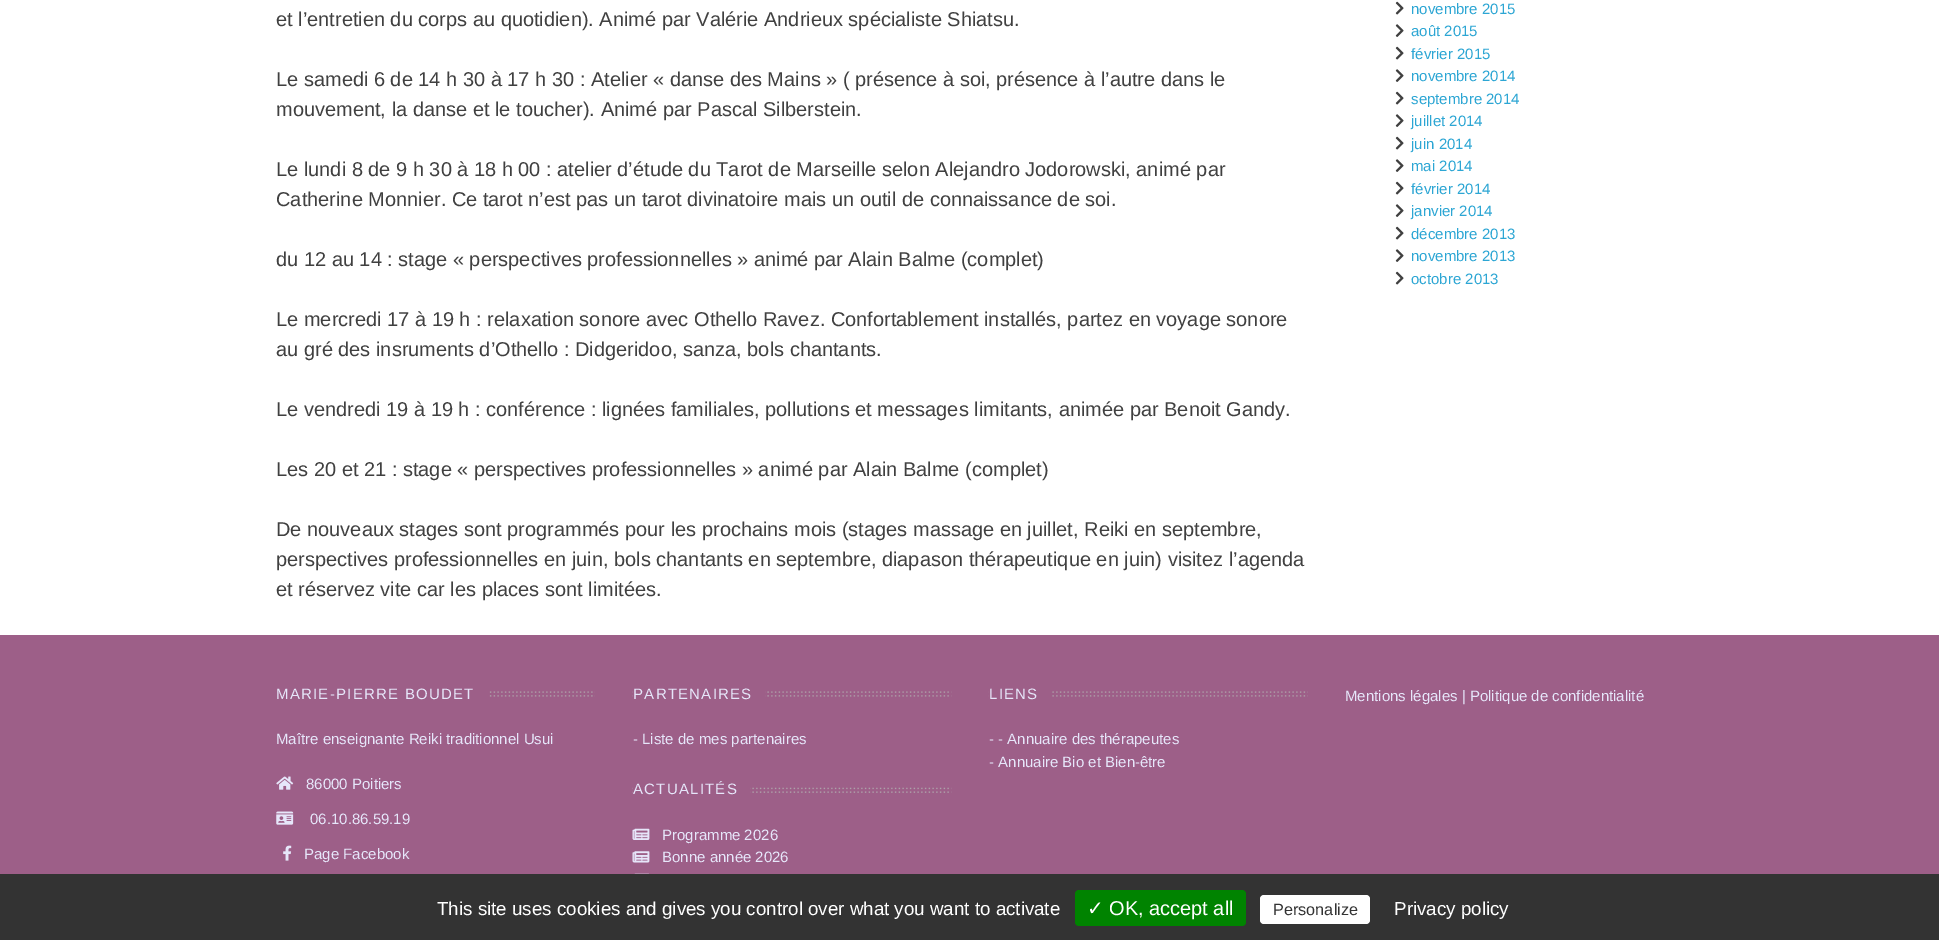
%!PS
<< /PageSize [1939 940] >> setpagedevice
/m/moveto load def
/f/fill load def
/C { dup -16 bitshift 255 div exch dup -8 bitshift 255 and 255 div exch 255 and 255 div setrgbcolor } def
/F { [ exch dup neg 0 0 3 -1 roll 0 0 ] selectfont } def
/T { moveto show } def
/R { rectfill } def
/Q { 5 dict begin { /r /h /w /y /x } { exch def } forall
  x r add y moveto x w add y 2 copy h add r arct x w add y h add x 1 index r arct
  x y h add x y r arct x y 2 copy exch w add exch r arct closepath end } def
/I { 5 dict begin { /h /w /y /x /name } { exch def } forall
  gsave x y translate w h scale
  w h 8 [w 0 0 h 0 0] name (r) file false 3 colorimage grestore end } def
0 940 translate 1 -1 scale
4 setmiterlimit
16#FFFFFF C
0 0 1939 940 R
/LiberationSans-Regular 20 F
16#404040 C
(et l’entretien du corps au quotidien\). Animé par Valérie Andrieux spécialiste Shiatsu.) 276 26 T
(Le samedi 6 de 14 h 30 à 17 h 30 : Atelier « danse des Mains » \( présence à soi, présence à l’autre dans le) 276 86 T
(mouvement, la danse et le toucher\). Animé par Pascal Silberstein.) 276 116 T
(Le lundi 8 de 9 h 30 à 18 h 00 : atelier d’étude du Tarot de Marseille selon Alejandro Jodorowski, animé par) 276 176 T
(Catherine Monnier. Ce tarot n’est pas un tarot divinatoire mais un outil de connaissance de soi.) 276 206 T
(du 12 au 14 : stage « perspectives professionnelles » animé par Alain Balme \(complet\)) 276 266 T
(Le mercredi 17 à 19 h : relaxation sonore avec Othello Ravez. Confortablement installés, partez en voyage sonore) 276 326 T
(au gré des insruments d’Othello : Didgeridoo, sanza, bols chantants.) 276 356 T
(Le vendredi 19 à 19 h : conférence : lignées familiales, pollutions et messages limitants, animée par Benoit Gandy.) 276 416 T
(Les 20 et 21 : stage « perspectives professionnelles » animé par Alain Balme \(complet\)) 276 476 T
(De nouveaux stages sont programmés pour les prochains mois \(stages massage en juillet, Reiki en septembre,) 276 536 T
(perspectives professionnelles en juin, bols chantants en septembre, diapason thérapeutique en juin\) visitez l’agenda) 276 566 T
(et réservez vite car les places sont limitées.) 276 596 T
(1.rgb) 1395 1 9 14 I
/LiberationSans-Regular 15 F
16#2CA6D4 C
(novembre 2015) 1411 14 T
(2.rgb) 1395 24 9 13 I
(août 2015) 1411 36 T
(1.rgb) 1395 46 9 14 I
(février 2015) 1411 59 T
(2.rgb) 1395 69 9 13 I
(novembre 2014) 1411 81 T
(1.rgb) 1395 91 9 14 I
(septembre 2014) 1411 104 T
(2.rgb) 1395 114 9 13 I
(juillet 2014) 1411 126 T
(1.rgb) 1395 136 9 14 I
(juin 2014) 1411 149 T
(2.rgb) 1395 159 9 13 I
(mai 2014) 1411 171 T
(1.rgb) 1395 181 9 14 I
(février 2014) 1411 194 T
(2.rgb) 1395 204 9 13 I
(janvier 2014) 1411 216 T
(1.rgb) 1395 226 9 14 I
(décembre 2013) 1411 239 T
(2.rgb) 1395 249 9 13 I
(novembre 2013) 1411 261 T
(1.rgb) 1395 271 9 14 I
(octobre 2013) 1411 284 T
16#9D5F88 C
0 635 1939 239 R
(3.rgb) 489 691 106 6 I
16#E6E6FA C
276 699 m 1.25 0 (MARIE-PIERRE BOUDET) ashow
(Maître enseignante Reiki traditionnel Usui) 276 744 T
(4.rgb) 276 776 18 14 I
(86000 Poitiers) 306 789 T
(5.rgb) 276 811 18 14 I
(06.10.86.59.19) 310 824 T
(6.rgb) 283 845 9 16 I
(Page Facebook) 304 859 T
(7.rgb) 632 691 320 6 I
16#9D5F88 C
633 691 132 6 R
16#E6E6FA C
633 699 m 1.25 0 (PARTENAIRES) ashow
(- Liste de mes partenaires) 633 744 T
(8.rgb) 632 787 320 6 I
16#9D5F88 C
633 787 117 6 R
16#E6E6FA C
633 794 m 1.25 0 (ACTUALITÉS) ashow
(9.rgb) 632 828 18 12 I
(Programme 2026) 662 840 T
(10.rgb) 632 851 18 12 I
(Bonne année 2026) 662 862 T
(11.rgb) 634 873 15 1 I
(12.rgb) 988 691 320 6 I
16#9D5F88 C
989 691 62 6 R
16#E6E6FA C
989 699 m 1.25 0 (LIENS) ashow
(- - Annuaire des thérapeutes) 989 744 T
(- Annuaire Bio et Bien-être) 989 767 T
(Mentions légales | Politique de confidentialité) 1345 701 T
16#333333 C
0 874 1939 66 R
/LiberationSans-Regular 18.75 F
16#FFFFFF C
(This site uses cookies and gives you control over what you want to activate) 437 915 T
16#008300 C
1075 890 171 36 4 Q f
/DejaVuSans-Regular 20 F
16#FFFFFF C
(✓) 1087 915 T
/LiberationSans-Regular 20 F
(OK, accept all) 1109 915 T
1260 895 110 29 4 Q f
/LiberationSans-Regular 16.25 F
16#333333 C
(Personalize) 1273 915 T
/LiberationSans-Regular 18.75 F
16#FFFFFF C
(Privacy policy) 1394 915 T
showpage
